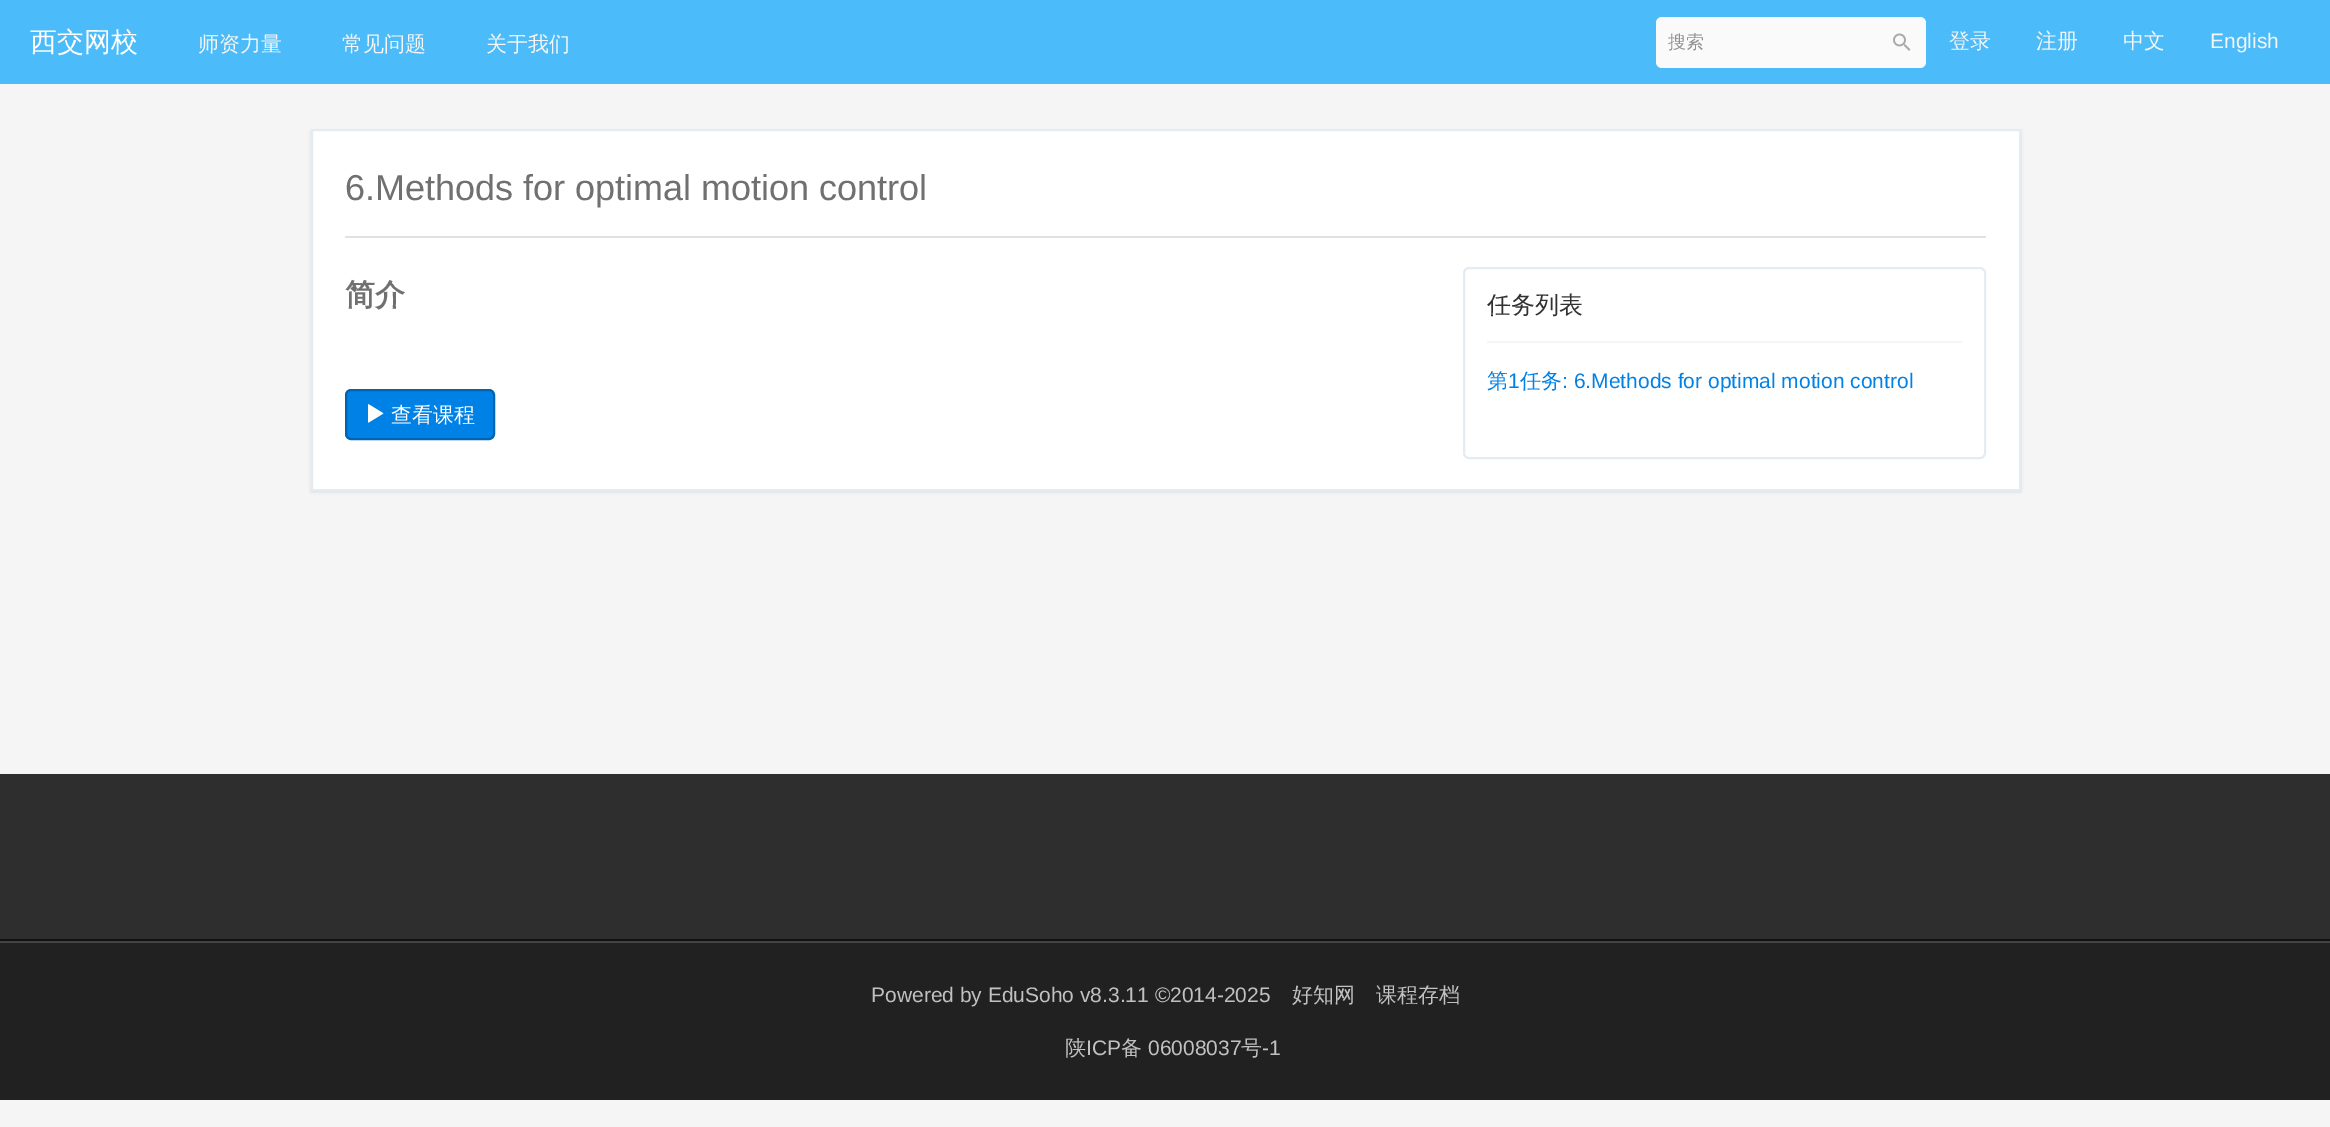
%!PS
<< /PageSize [2330 1127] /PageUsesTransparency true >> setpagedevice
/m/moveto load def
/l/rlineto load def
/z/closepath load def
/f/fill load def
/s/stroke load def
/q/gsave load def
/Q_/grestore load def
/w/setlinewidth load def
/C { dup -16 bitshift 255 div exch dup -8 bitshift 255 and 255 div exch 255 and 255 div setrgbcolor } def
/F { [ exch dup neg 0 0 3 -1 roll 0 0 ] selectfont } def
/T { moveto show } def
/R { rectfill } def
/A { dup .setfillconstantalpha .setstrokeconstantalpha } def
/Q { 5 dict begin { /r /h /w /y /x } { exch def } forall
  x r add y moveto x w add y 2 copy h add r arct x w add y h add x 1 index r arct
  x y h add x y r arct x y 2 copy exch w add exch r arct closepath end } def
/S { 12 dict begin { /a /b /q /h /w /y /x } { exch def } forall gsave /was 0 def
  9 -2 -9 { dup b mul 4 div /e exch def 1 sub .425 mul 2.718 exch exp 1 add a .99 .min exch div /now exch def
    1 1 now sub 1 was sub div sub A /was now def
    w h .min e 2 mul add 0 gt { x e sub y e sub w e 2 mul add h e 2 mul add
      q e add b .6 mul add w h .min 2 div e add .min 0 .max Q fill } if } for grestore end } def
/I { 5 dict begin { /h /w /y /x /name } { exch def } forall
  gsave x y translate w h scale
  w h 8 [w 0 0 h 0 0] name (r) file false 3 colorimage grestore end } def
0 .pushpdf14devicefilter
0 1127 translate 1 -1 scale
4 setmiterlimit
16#F5F5F5 C
0 0 2330 1127 R
16#4BBBFA C
0 0 2330 84 R
/WenQuanYiZenHei-Medium 27 F
16#FFFFFF C
(西交网校) 30 51 T
/WenQuanYiZenHei-Medium 21 F
16#F5F5F5 C
(师资力量) 198 51 T
(常见问题) 342 51 T
(关于我们) 486 51 T
16#FAFAFA C
1656 17 270 51 6 Q f
/WenQuanYiZenHei-Medium 18 F
16#919191 C
(搜索) 1668 48 T
(1.rgb) 1893 33 18 18 I
/WenQuanYiZenHei-Medium 21 F
16#F5F5F5 C
(登录) 1949 48 T
(注册) 2036 48 T
(中文) 2123 48 T
/LiberationSans-Regular 21 F
(English) 2210 48 T
16#000000 C
311 131 1710 361 0 1.5 .1 S
16#FFFFFF C
312 130 m 1708 0 l 0 360 l -1708 0 l z q f Q_
16#E4ECF3 C
2 w
s
16#E1E1E1 C
345 236 1641 2 R
/LiberationSans-Regular 36 F
16#707070 C
(6.Methods for optimal motion control) 345 200 T
/WenQuanYiZenHei-Bold 30 F
(简介) 345 305 T
16#0081E6 C
346 390 148 49 5 Q q f Q_
16#0064B3 C
s
(2.rgb) 368 404 16 19 I
/WenQuanYiZenHei-Medium 21 F
16#FFFFFF C
(查看课程) 391 422 T
16#E4ECF3 C
1464 268 521 190 5 Q s
16#F5F5F5 C
1487 341 475 2 R
/WenQuanYiZenHei-Medium 24 F
16#313131 C
(任务列表) 1487 313 T
/WenQuanYiZenHei-Medium 21 F
16#0081E6 C
(第) 1487 388 T
/LiberationSans-Regular 21 F
(1) 1508 388 T
/WenQuanYiZenHei-Medium 21 F
(任务) 1520 388 T
/LiberationSans-Regular 21 F
(: 6.Methods for optimal motion control) 1562 388 T
16#2E2E2E C
0 774 2330 165 R
16#111111 C
0 939 2330 2 R
16#212121 C
0 943 2330 157 R
16#444444 C
0 941 2330 2 R
16#C1C1C1 C
(Powered by EduSoho v8.3.11 ©2014-2025) 871 1002 T
/WenQuanYiZenHei-Medium 21 F
(好知网) 1292 1002 T
(课程存档) 1376 1002 T
(陕) 1065 1055 T
/LiberationSans-Regular 21 F
(ICP) 1086 1055 T
/WenQuanYiZenHei-Medium 21 F
(备) 1121 1055 T
/LiberationSans-Regular 21 F
(06008037) 1148 1055 T
/WenQuanYiZenHei-Medium 21 F
(号) 1241 1055 T
/LiberationSans-Regular 21 F
(-1) 1262 1055 T
.poppdf14devicefilter showpage
